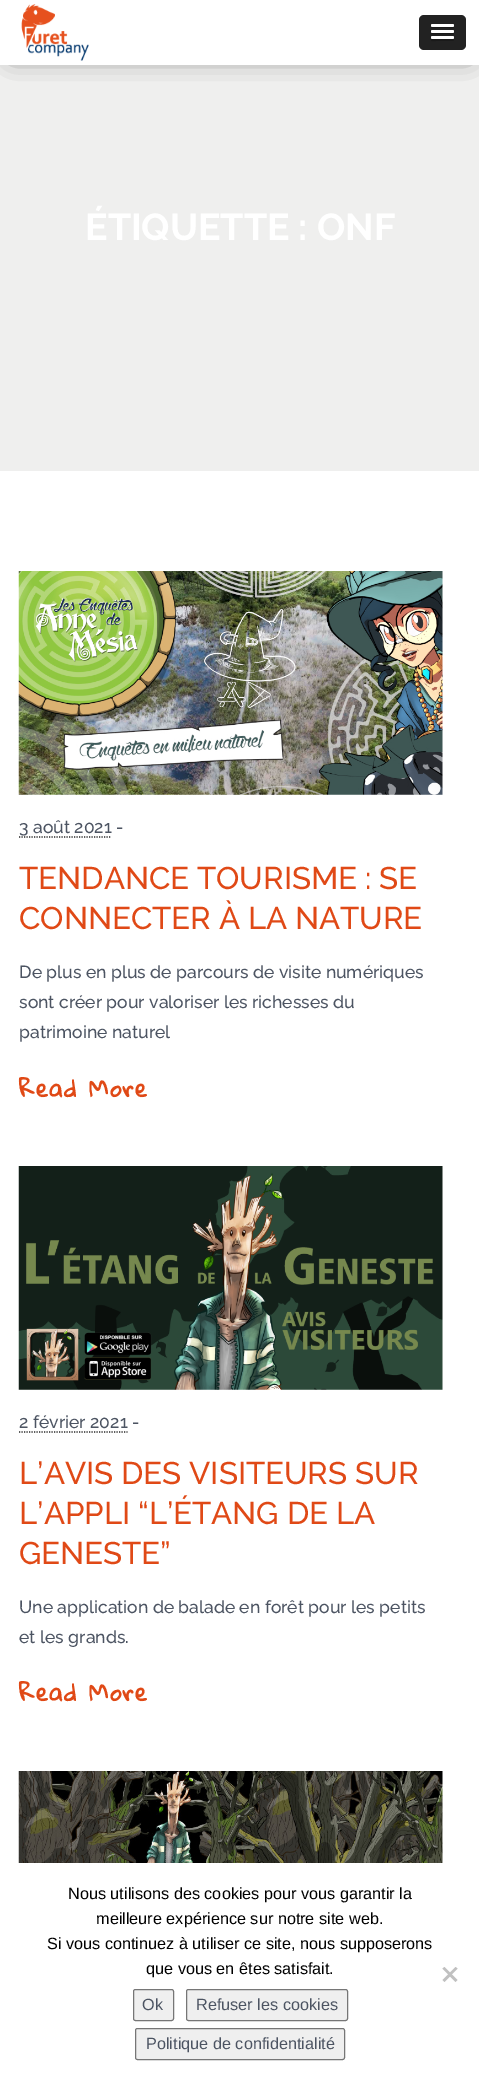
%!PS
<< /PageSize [479 2085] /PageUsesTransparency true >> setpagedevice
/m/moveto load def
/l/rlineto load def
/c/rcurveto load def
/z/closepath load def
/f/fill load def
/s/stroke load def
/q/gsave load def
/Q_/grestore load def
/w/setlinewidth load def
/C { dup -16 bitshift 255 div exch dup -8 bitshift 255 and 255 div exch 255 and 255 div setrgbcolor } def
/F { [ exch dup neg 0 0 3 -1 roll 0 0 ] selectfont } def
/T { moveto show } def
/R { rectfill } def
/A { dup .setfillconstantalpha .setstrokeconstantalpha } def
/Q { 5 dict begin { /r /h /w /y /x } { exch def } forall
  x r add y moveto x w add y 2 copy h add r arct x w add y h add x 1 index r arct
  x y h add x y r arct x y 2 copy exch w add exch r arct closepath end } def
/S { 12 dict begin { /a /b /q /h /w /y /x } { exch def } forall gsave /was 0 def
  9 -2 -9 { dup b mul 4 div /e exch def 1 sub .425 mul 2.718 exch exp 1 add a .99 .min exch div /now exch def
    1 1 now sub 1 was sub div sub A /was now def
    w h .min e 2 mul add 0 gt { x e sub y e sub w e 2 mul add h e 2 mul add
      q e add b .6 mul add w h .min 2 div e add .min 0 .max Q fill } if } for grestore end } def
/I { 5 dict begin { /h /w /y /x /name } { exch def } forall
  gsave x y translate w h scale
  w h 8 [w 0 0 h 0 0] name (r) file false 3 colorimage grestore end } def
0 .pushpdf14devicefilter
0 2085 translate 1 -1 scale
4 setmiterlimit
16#FFFFFF C
0 0 479 2085 R
16#EFEFEE C
0 65 479 406 R
16#000000 C
13 13 455 40 0 12.5 .8 S
16#FFFFFF C
0 0 479 65 R
(1.rgb) 21 4 68 57 I
16#222222 C
419 15 47 35 5 Q f
16#1A1A1A C
431.5 25.5 m -.5 1.5 l .5 2 4 1 5 1 c 13 0 l 1 0 4.5 1 5 -1 c -.5 -1.5 l 0 .5 -.5 .5 -1 .5 c -20 0 l -.5 0 -1 0 -1 -.5 c z f
16#FFFFFF C
431 24 23 3 1.5 Q f
16#1A1A1A C
431.5 31.5 m -2.5 3 4 2.5 4.5 2.5 c 13 0 l .5 0 7 .5 4.5 -2.5 c 0 .5 -.5 1 -1 1 c -20 0 l -.5 0 -1 -.5 -1 -1 c z f
16#FFFFFF C
431 30 23 3 1.5 Q f
16#1A1A1A C
431.5 38.5 m -.5 0 -.5 1 -.5 1.5 c .5 2 4 1 5 1 c 17 0 l 1 -.5 1.5 -2 .5 -2.5 c -1 .5 -21 .5 -22 0 c z f
16#FFFFFF C
431 36 23 3 1.5 Q f
/Raleway-Bold 37.5 F
(ÉTIQUETTE : ONF) 85 240 T
(2.rgb) 18 571 425 224 I
/Raleway-Medium 17.5 F
16#4C5462 C
(3 août 2021) 19 833 T
16#232323 C
1.2 w
[1.25 1.25] 0 setdash
19 837 m 92 0 l s
16#4C5462 C
(-) 116 833 T
/Raleway-Medium 31.25 F
16#E04916 C
(TENDANCE TOURISME : SE) 19 889 T
(CONNECTER À LA NATURE) 19 929 T
/Raleway-Medium 17.5 F
16#4C5462 C
(De plus en plus de parcours de visite numériques) 19 978 T
(sont créer pour valoriser les richesses du) 19 1008 T
(patrimoine naturel) 19 1038 T
/GloriaHallelujah-Bold 22.5 F
16#E04916 C
19 1097 m 1.25 0 (Read More) ashow
(3.rgb) 18 1166 425 224 I
/Raleway-Medium 17.5 F
16#4C5462 C
(2 février 2021) 19 1428 T
16#232323 C
19 1432 m 108.5 0 l s
16#4C5462 C
(-) 132 1428 T
/Raleway-Medium 31.25 F
16#E04916 C
(L’AVIS DES VISITEURS SUR) 19 1484 T
(L’APPLI “L’ÉTANG DE LA) 19 1524 T
(GENESTE”) 19 1564 T
/Raleway-Medium 17.5 F
16#4C5462 C
(Une application de balade en forêt pour les petits) 19 1613 T
(et les grands.) 19 1643 T
/GloriaHallelujah-Bold 22.5 F
16#E04916 C
19 1701 m 1.25 0 (Read More) ashow
(4.rgb) 18 1771 425 92 I
/LiberationSans-Regular 16.25 F
16#000000 C
(Nous utilisons des cookies pour vous garantir la) 68 1899 T
(meilleure expérience sur notre site web.) 96 1924 T
(Si vous continuez à utiliser ce site, nous supposerons) 47 1949 T
(que vous en êtes satisfait.) 146 1974 T
16#C0C0C0 C
455.5 1967 m 2 1.5 l -13 13.5 l -2 -2 l z f
442.5 1968.5 m 2 -1.5 l 13 13 l -2 2 l z f
16#EFEFEF C
133.5 1989.5 40 31 2 Q q f Q_
16#767676 C
1 w
[] 0 setdash
s
16#4C5462 C
(Ok) 142 2010 T
16#EFEFEF C
186.5 1989.5 161 31 2 Q q f Q_
16#767676 C
s
16#4C5462 C
(Refuser les cookies) 196 2010 T
16#EFEFEF C
135.5 2028.5 209 31 2 Q q f Q_
16#767676 C
s
16#4C5462 C
(Politique de confidentialité) 146 2049 T
.poppdf14devicefilter showpage
